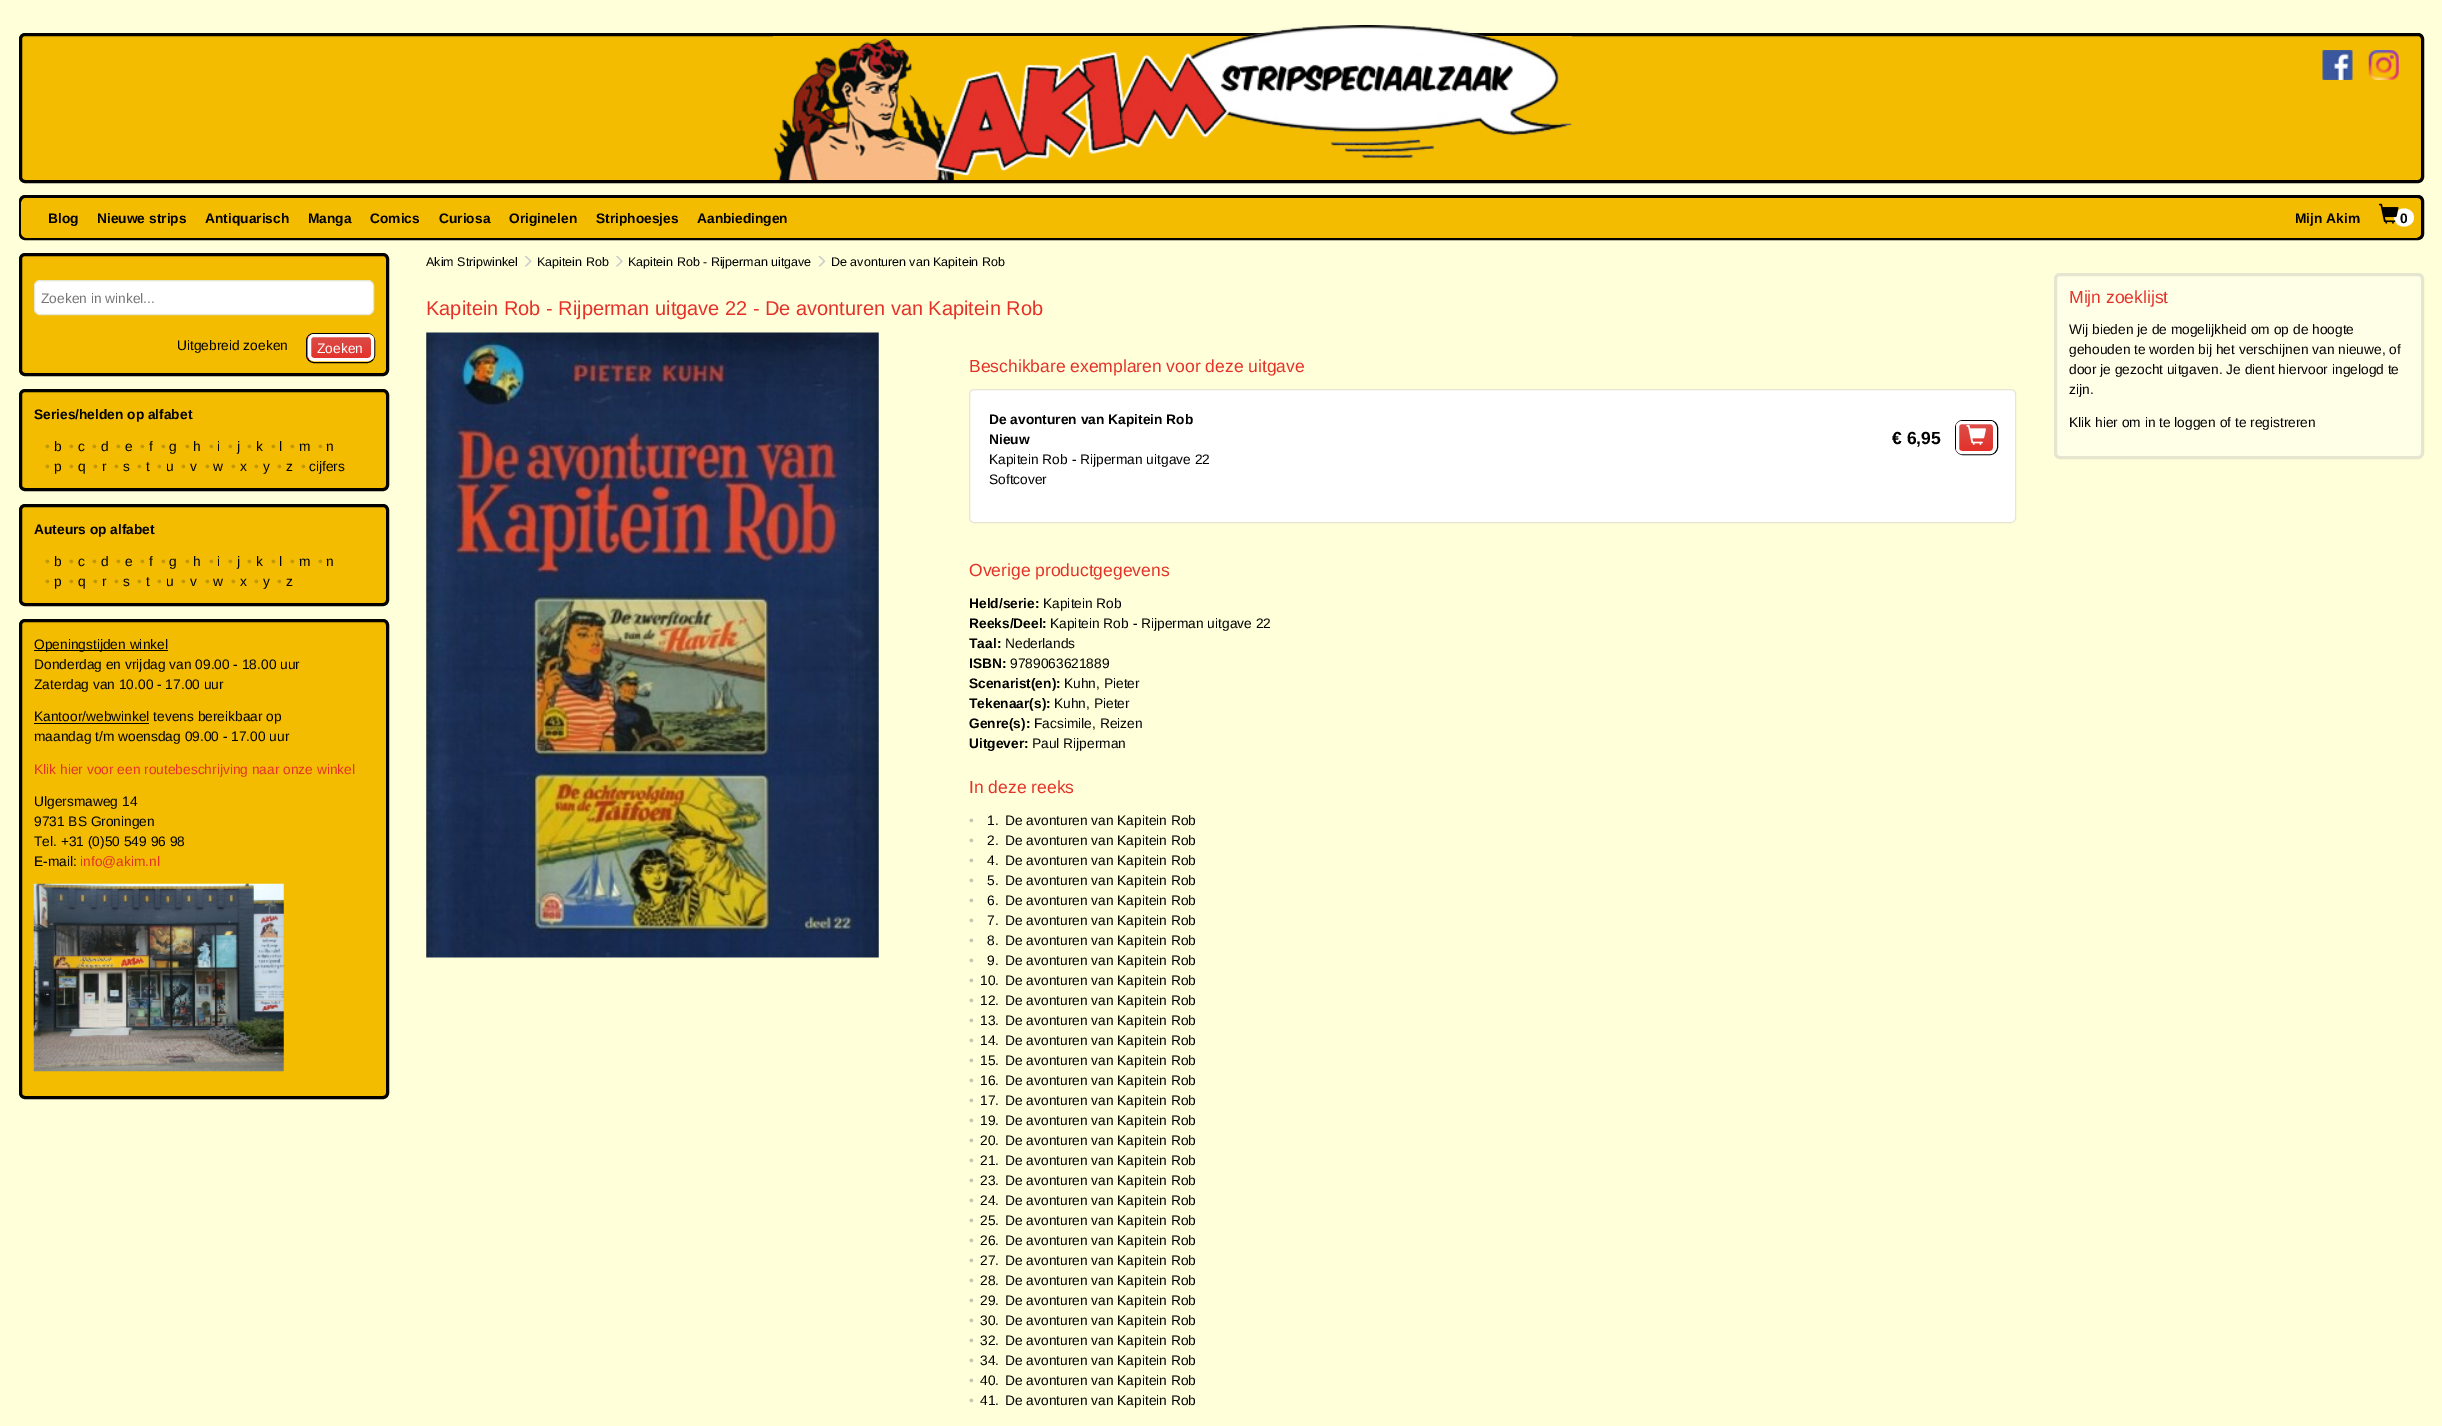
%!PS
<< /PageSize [2442 1426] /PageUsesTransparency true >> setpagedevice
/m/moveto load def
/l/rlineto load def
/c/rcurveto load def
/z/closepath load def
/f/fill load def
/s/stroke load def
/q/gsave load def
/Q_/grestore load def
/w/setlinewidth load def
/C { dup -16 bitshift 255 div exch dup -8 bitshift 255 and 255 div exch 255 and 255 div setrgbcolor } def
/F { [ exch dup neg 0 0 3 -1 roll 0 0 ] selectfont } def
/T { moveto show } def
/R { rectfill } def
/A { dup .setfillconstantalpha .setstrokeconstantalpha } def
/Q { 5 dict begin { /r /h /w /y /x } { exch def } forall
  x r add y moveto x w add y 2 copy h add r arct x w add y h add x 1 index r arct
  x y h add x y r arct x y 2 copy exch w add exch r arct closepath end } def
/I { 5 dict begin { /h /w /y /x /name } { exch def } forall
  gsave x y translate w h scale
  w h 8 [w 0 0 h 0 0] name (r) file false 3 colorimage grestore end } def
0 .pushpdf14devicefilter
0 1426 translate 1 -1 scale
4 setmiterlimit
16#FFFFD9 C
0 0 2442 1426 R
16#F3BC00 C
20.5 34.5 2402 147 4.5 Q q f Q_
16#020100 C
3 w
s
(1.rgb) 773 25 799 155 I
(2.rgb) 2322 50 31 30 I
(3.rgb) 2368 50 31 30 I
16#F3BC00 C
20.5 196.5 2402 42 4.5 Q q f Q_
16#020100 C
s
16#F3BC00 C
21 198 2400 40 6 Q f
/LiberationSans-Bold 13.75 F
16#000000 C
(Blog) 48 223 T
(Nieuwe strips) 97 223 T
(Antiquarisch) 205 223 T
(Manga) 308 223 T
(Comics) 370 223 T
(Curiosa) 439 223 T
(Originelen) 509 223 T
(Striphoesjes) 596 223 T
(Aanbiedingen) 697 223 T
(Mijn Akim) 2295 223 T
16#FFFFFF C
2404 208.5 m 5.5 0 10 4 10 9 c 0 5 -4.5 9 -10 9 c -5.5 0 -10 -4 -10 -9 c 0 -5 4.5 -9 10 -9 c z f
(4.rgb) 2378 203 21 21 I
16#000000 C
(0) 2400 223 T
16#F3BC00 C
20.5 254.5 367 120 4.5 Q q f Q_
16#020100 C
s
16#FFFFFF C
34.5 280.5 339 34 5.5 Q q f Q_
16#E6E6D2 C
1 w
s
/LiberationSans-Regular 13.75 F
16#757575 C
(Zoeken in winkel...) 41 303 T
16#000000 C
(Uitgebreid zoeken) 177 350 T
306.5 333.5 68 29 7.5 Q s
q
308 334 66 27 6 Q clip newpath
q 308 336 m 66 0 l 0 23 l -66 0 l z clip newpath
<< /ShadingType 2 /ColorSpace /DeviceRGB /Coords [341 336 341 359] /Extend [true true] /Function << /FunctionType 3 /Domain [0 1] /Functions [<< /FunctionType 2 /Domain [0 1] /C0 [.886 .337 .318] /C1 [.886 .337 .318] /N 1 >> << /FunctionType 2 /Domain [0 1] /C0 [.859 .302 .282] /C1 [.894 .192 .165] /N 1 >>] /Bounds [.01] /Encode [0 1 0 1] >> >> shfill Q_
Q_
16#FFFFFF C
3 w
309.5 335.5 63 24 4.5 Q s
(Zoeken) 317 353 T
16#F3BC00 C
20.5 390.5 367 99 4.5 Q q f Q_
16#020100 C
s
/LiberationSans-Bold 13.75 F
16#000000 C
(Series/helden op alfabet) 34 419 T
/LiberationSans-Regular 13.75 F
16#C29600 C
(•) 45 451 T
16#000000 C
(b) 54 451 T
16#C29600 C
(•) 69 451 T
16#000000 C
(c) 78 451 T
16#C29600 C
(•) 92 451 T
16#000000 C
(d) 101 451 T
16#C29600 C
(•) 116 451 T
16#000000 C
(e) 125 451 T
16#C29600 C
(•) 140 451 T
16#000000 C
(f) 149 451 T
16#C29600 C
(•) 161 451 T
16#000000 C
(g) 169 451 T
16#C29600 C
(•) 185 451 T
16#000000 C
(h) 193 451 T
16#C29600 C
(•) 209 451 T
16#000000 C
(i) 217 451 T
16#C29600 C
(•) 228 451 T
16#000000 C
(j) 237 451 T
16#C29600 C
(•) 247 451 T
16#000000 C
(k) 256 451 T
16#C29600 C
(•) 271 451 T
16#000000 C
(l) 279 451 T
16#C29600 C
(•) 290 451 T
16#000000 C
(m) 299 451 T
16#C29600 C
(•) 318 451 T
16#000000 C
(n) 326 451 T
16#C29600 C
(•) 45 471 T
16#000000 C
(p) 54 471 T
16#C29600 C
(•) 69 471 T
16#000000 C
(q) 78 471 T
16#C29600 C
(•) 93 471 T
16#000000 C
(r) 102 471 T
16#C29600 C
(•) 114 471 T
16#000000 C
(s) 123 471 T
16#C29600 C
(•) 137 471 T
16#000000 C
(t) 146 471 T
16#C29600 C
(•) 157 471 T
16#000000 C
(u) 166 471 T
16#C29600 C
(•) 181 471 T
16#000000 C
(v) 190 471 T
16#C29600 C
(•) 205 471 T
16#000000 C
(w) 213 471 T
16#C29600 C
(•) 231 471 T
16#000000 C
(x) 240 471 T
16#C29600 C
(•) 254 471 T
16#000000 C
(y) 263 471 T
16#C29600 C
(•) 277 471 T
16#000000 C
(z) 286 471 T
16#C29600 C
(•) 301 471 T
16#000000 C
(cijfers) 309 471 T
16#F3BC00 C
20.5 505.5 367 99 4.5 Q q f Q_
16#020100 C
s
/LiberationSans-Bold 13.75 F
16#000000 C
(Auteurs op alfabet) 34 534 T
/LiberationSans-Regular 13.75 F
16#C29600 C
(•) 45 566 T
16#000000 C
(b) 54 566 T
16#C29600 C
(•) 69 566 T
16#000000 C
(c) 78 566 T
16#C29600 C
(•) 92 566 T
16#000000 C
(d) 101 566 T
16#C29600 C
(•) 116 566 T
16#000000 C
(e) 125 566 T
16#C29600 C
(•) 140 566 T
16#000000 C
(f) 149 566 T
16#C29600 C
(•) 161 566 T
16#000000 C
(g) 169 566 T
16#C29600 C
(•) 185 566 T
16#000000 C
(h) 193 566 T
16#C29600 C
(•) 209 566 T
16#000000 C
(i) 217 566 T
16#C29600 C
(•) 228 566 T
16#000000 C
(j) 237 566 T
16#C29600 C
(•) 247 566 T
16#000000 C
(k) 256 566 T
16#C29600 C
(•) 271 566 T
16#000000 C
(l) 279 566 T
16#C29600 C
(•) 290 566 T
16#000000 C
(m) 299 566 T
16#C29600 C
(•) 318 566 T
16#000000 C
(n) 326 566 T
16#C29600 C
(•) 45 586 T
16#000000 C
(p) 54 586 T
16#C29600 C
(•) 69 586 T
16#000000 C
(q) 78 586 T
16#C29600 C
(•) 93 586 T
16#000000 C
(r) 102 586 T
16#C29600 C
(•) 114 586 T
16#000000 C
(s) 123 586 T
16#C29600 C
(•) 137 586 T
16#000000 C
(t) 146 586 T
16#C29600 C
(•) 157 586 T
16#000000 C
(u) 166 586 T
16#C29600 C
(•) 181 586 T
16#000000 C
(v) 190 586 T
16#C29600 C
(•) 205 586 T
16#000000 C
(w) 213 586 T
16#C29600 C
(•) 231 586 T
16#000000 C
(x) 240 586 T
16#C29600 C
(•) 254 586 T
16#000000 C
(y) 263 586 T
16#C29600 C
(•) 277 586 T
16#000000 C
(z) 286 586 T
16#F3BC00 C
20.5 620.5 367 477 4.5 Q q f Q_
16#020100 C
s
16#000000 C
34 650 134 1 R
(Openingstijden winkel) 34 649 T
(Donderdag en vrijdag van 09.00 - 18.00 uur) 34 669 T
(Zaterdag van 10.00 - 17.00 uur) 34 689 T
34 723 115 1 R
(Kantoor/webwinkel tevens bereikbaar op) 34 721 T
(maandag t/m woensdag 09.00 - 17.00 uur) 34 741 T
16#E4312A C
(Klik hier voor een routebeschrijving naar onze winkel) 34 774 T
16#000000 C
(Ulgersmaweg 14) 34 806 T
(9731 BS Groningen) 34 826 T
(Tel. +31 \(0\)50 549 96 98) 34 846 T
(E-mail:) 34 866 T
16#E4312A C
(info@akim.nl) 80 866 T
(5.rgb) 33 883 251 189 I
/LiberationSans-Regular 12.5 F
16#000000 C
(Akim Stripwinkel) 426 266 T
(6.rgb) 524 256 8 11 I
(Kapitein Rob) 537 266 T
(7.rgb) 616 256 7 11 I
(Kapitein Rob - Rijperman uitgave) 628 266 T
(8.rgb) 818 256 8 11 I
(De avonturen van Kapitein Rob) 831 266 T
/LiberationSans-Regular 20 F
16#E4312A C
(Kapitein Rob - Rijperman uitgave 22 - De avonturen van Kapitein Rob) 426 315 T
(9.rgb) 426 332 453 626 I
/LiberationSans-Regular 17.5 F
(Beschikbare exemplaren voor deze uitgave) 969 372 T
16#FFFFFF C
969.5 389.5 1046 133 4.5 Q q f Q_
16#E6E6D2 C
1 w
s
/LiberationSans-Bold 13.75 F
16#000000 C
(De avonturen van Kapitein Rob) 989 424 T
(Nieuw) 989 444 T
/LiberationSans-Regular 13.75 F
(Kapitein Rob - Rijperman uitgave 22) 989 464 T
(Softcover) 989 484 T
/LiberationSans-Bold 17.5 F
(€ 6,95) 1892 444 T
1955.5 420.5 42 34 7.5 Q s
q
1956 421 40 33 6 Q clip newpath
q 1956 424 m 40 0 l 0 27 l -40 0 l z clip newpath
<< /ShadingType 2 /ColorSpace /DeviceRGB /Coords [1976 424 1976 451] /Extend [true true] /Function << /FunctionType 3 /Domain [0 1] /Functions [<< /FunctionType 2 /Domain [0 1] /C0 [.886 .337 .318] /C1 [.886 .337 .318] /N 1 >> << /FunctionType 2 /Domain [0 1] /C0 [.859 .302 .282] /C1 [.894 .192 .165] /N 1 >>] /Bounds [.01] /Encode [0 1 0 1] >> >> shfill Q_
Q_
16#FFFFFF C
3 w
1957.5 422.5 37 30 4.5 Q s
(10.rgb) 1966 425 20 20 I
/LiberationSans-Regular 17.5 F
16#E4312A C
(Overige productgegevens) 969 576 T
/LiberationSans-Bold 13.75 F
16#000000 C
(Held/serie:) 969 608 T
/LiberationSans-Regular 13.75 F
(Kapitein Rob) 1043 608 T
/LiberationSans-Bold 13.75 F
(Reeks/Deel:) 969 628 T
/LiberationSans-Regular 13.75 F
(Kapitein Rob - Rijperman uitgave 22) 1050 628 T
/LiberationSans-Bold 13.75 F
(Taal:) 969 648 T
/LiberationSans-Regular 13.75 F
(Nederlands) 1005 648 T
/LiberationSans-Bold 13.75 F
(ISBN:) 969 668 T
/LiberationSans-Regular 13.75 F
(9789063621889) 1010 668 T
/LiberationSans-Bold 13.75 F
(Scenarist\(en\):) 969 688 T
/LiberationSans-Regular 13.75 F
(Kuhn, Pieter) 1064 688 T
/LiberationSans-Bold 13.75 F
(Tekenaar\(s\):) 969 708 T
/LiberationSans-Regular 13.75 F
(Kuhn, Pieter) 1054 708 T
/LiberationSans-Bold 13.75 F
(Genre\(s\):) 969 728 T
/LiberationSans-Regular 13.75 F
(Facsimile, Reizen) 1034 728 T
/LiberationSans-Bold 13.75 F
(Uitgever:) 969 748 T
/LiberationSans-Regular 13.75 F
(Paul Rijperman) 1032 748 T
/LiberationSans-Regular 17.5 F
16#E4312A C
(In deze reeks) 969 793 T
/LiberationSans-Regular 13.75 F
16#C4C4B0 C
(•) 969 825 T
16#000000 C
(1.) 987 825 T
(De avonturen van Kapitein Rob) 1005 825 T
16#C4C4B0 C
(•) 969 845 T
16#000000 C
(2.) 987 845 T
(De avonturen van Kapitein Rob) 1005 845 T
16#C4C4B0 C
(•) 969 865 T
16#000000 C
(4.) 987 865 T
(De avonturen van Kapitein Rob) 1005 865 T
16#C4C4B0 C
(•) 969 885 T
16#000000 C
(5.) 987 885 T
(De avonturen van Kapitein Rob) 1005 885 T
16#C4C4B0 C
(•) 969 905 T
16#000000 C
(6.) 987 905 T
(De avonturen van Kapitein Rob) 1005 905 T
16#C4C4B0 C
(•) 969 925 T
16#000000 C
(7.) 987 925 T
(De avonturen van Kapitein Rob) 1005 925 T
16#C4C4B0 C
(•) 969 945 T
16#000000 C
(8.) 987 945 T
(De avonturen van Kapitein Rob) 1005 945 T
16#C4C4B0 C
(•) 969 965 T
16#000000 C
(9.) 987 965 T
(De avonturen van Kapitein Rob) 1005 965 T
16#C4C4B0 C
(•) 969 985 T
16#000000 C
(10.) 980 985 T
(De avonturen van Kapitein Rob) 1005 985 T
16#C4C4B0 C
(•) 969 1005 T
16#000000 C
(12.) 980 1005 T
(De avonturen van Kapitein Rob) 1005 1005 T
16#C4C4B0 C
(•) 969 1025 T
16#000000 C
(13.) 980 1025 T
(De avonturen van Kapitein Rob) 1005 1025 T
16#C4C4B0 C
(•) 969 1045 T
16#000000 C
(14.) 980 1045 T
(De avonturen van Kapitein Rob) 1005 1045 T
16#C4C4B0 C
(•) 969 1065 T
16#000000 C
(15.) 980 1065 T
(De avonturen van Kapitein Rob) 1005 1065 T
16#C4C4B0 C
(•) 969 1085 T
16#000000 C
(16.) 980 1085 T
(De avonturen van Kapitein Rob) 1005 1085 T
16#C4C4B0 C
(•) 969 1105 T
16#000000 C
(17.) 980 1105 T
(De avonturen van Kapitein Rob) 1005 1105 T
16#C4C4B0 C
(•) 969 1125 T
16#000000 C
(19.) 980 1125 T
(De avonturen van Kapitein Rob) 1005 1125 T
16#C4C4B0 C
(•) 969 1145 T
16#000000 C
(20.) 980 1145 T
(De avonturen van Kapitein Rob) 1005 1145 T
16#C4C4B0 C
(•) 969 1165 T
16#000000 C
(21.) 980 1165 T
(De avonturen van Kapitein Rob) 1005 1165 T
16#C4C4B0 C
(•) 969 1185 T
16#000000 C
(23.) 980 1185 T
(De avonturen van Kapitein Rob) 1005 1185 T
16#C4C4B0 C
(•) 969 1205 T
16#000000 C
(24.) 980 1205 T
(De avonturen van Kapitein Rob) 1005 1205 T
16#C4C4B0 C
(•) 969 1225 T
16#000000 C
(25.) 980 1225 T
(De avonturen van Kapitein Rob) 1005 1225 T
16#C4C4B0 C
(•) 969 1245 T
16#000000 C
(26.) 980 1245 T
(De avonturen van Kapitein Rob) 1005 1245 T
16#C4C4B0 C
(•) 969 1265 T
16#000000 C
(27.) 980 1265 T
(De avonturen van Kapitein Rob) 1005 1265 T
16#C4C4B0 C
(•) 969 1285 T
16#000000 C
(28.) 980 1285 T
(De avonturen van Kapitein Rob) 1005 1285 T
16#C4C4B0 C
(•) 969 1305 T
16#000000 C
(29.) 980 1305 T
(De avonturen van Kapitein Rob) 1005 1305 T
16#C4C4B0 C
(•) 969 1325 T
16#000000 C
(30.) 980 1325 T
(De avonturen van Kapitein Rob) 1005 1325 T
16#C4C4B0 C
(•) 969 1345 T
16#000000 C
(32.) 980 1345 T
(De avonturen van Kapitein Rob) 1005 1345 T
16#C4C4B0 C
(•) 969 1365 T
16#000000 C
(34.) 980 1365 T
(De avonturen van Kapitein Rob) 1005 1365 T
16#C4C4B0 C
(•) 969 1385 T
16#000000 C
(40.) 980 1385 T
(De avonturen van Kapitein Rob) 1005 1385 T
16#C4C4B0 C
(•) 969 1405 T
16#000000 C
(41.) 980 1405 T
(De avonturen van Kapitein Rob) 1005 1405 T
16#FFFFE8 C
2054 273 370 186 6 Q f
0.1 A
16#000000 C
2055.5 274.5 367 183 4.5 Q s
/LiberationSans-Regular 17.5 F
1 A
16#E4312A C
(Mijn zoeklijst) 2069 303 T
/LiberationSans-Regular 13.75 F
16#000000 C
(Wij bieden je de mogelijkheid om op de hoogte) 2069 334 T
(gehouden te worden bij het verschijnen van nieuwe, of) 2069 354 T
(door je gezocht uitgaven. Je dient hiervoor ingelogd te) 2069 374 T
(zijn.) 2069 394 T
(Klik hier om in te loggen of te registreren) 2069 427 T
.poppdf14devicefilter showpage
